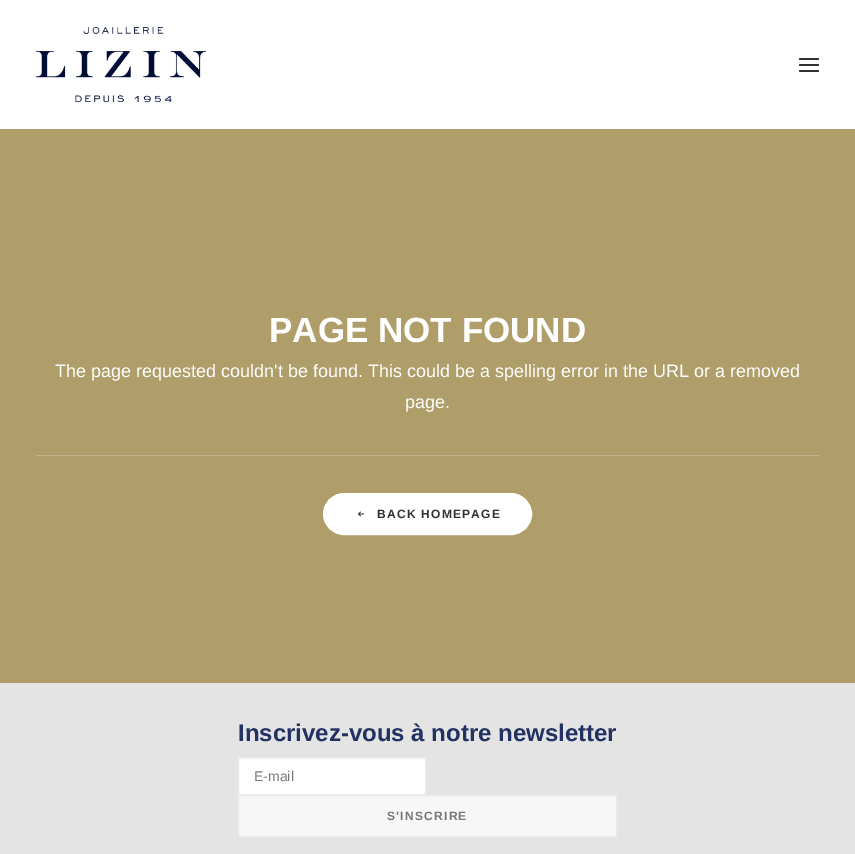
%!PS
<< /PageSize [855 854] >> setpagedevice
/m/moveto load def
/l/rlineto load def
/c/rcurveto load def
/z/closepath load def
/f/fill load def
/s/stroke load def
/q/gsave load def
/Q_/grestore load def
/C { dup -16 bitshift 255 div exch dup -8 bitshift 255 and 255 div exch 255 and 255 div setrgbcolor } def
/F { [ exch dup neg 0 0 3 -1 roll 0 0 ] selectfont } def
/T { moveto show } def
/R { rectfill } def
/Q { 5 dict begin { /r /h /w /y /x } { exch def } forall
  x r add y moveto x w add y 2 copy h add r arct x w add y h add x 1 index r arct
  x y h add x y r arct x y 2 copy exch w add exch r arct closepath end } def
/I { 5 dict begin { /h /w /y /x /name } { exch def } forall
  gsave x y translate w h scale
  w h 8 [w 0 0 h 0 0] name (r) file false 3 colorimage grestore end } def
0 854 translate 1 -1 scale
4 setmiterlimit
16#AF9E69 C
0 0 855 854 R
16#FFFFFF C
0 0 855 129 R
(1.rgb) 36 27 170 75 I
16#303133 C
799 64 20 2 1 Q f
799 58 20 2 1 Q f
799 70 20 2 1 Q f
/LiberationSans-Bold 35 F
16#FFFFFF C
(PAGE NOT FOUND) 269 342 T
/LiberationSans-Regular 18 F
(The page requested couldn't be found. This could be a spelling error in the URL or a removed) 55 377 T
(page.) 405 408 T
16#C3B68F C
36 455 783 1 R
16#FFFFFF C
323.5 493.5 208 41 20.5 Q q f Q_
s
(2.rgb) 357 511 7 6 I
/LiberationSans-Bold 12 F
16#303133 C
377 518 m 1.25 0 (BACK HOMEPAGE) ashow
16#E4E4E4 C
0 683 855 171 R
/LiberationSans-Bold 24 F
16#233262 C
(Inscrivez-vous à notre newsletter) 238 741 T
16#FFFFFF C
238 757 188 38 2 Q f
16#F9F9F9 C
240 760 m 185 0 l 0 1 l 0 -1 0 -2 -1 -3 c -184 0 l -1 0 -1 2 -1 3 c 0 -1 0 -1 1 -1 c z f
16#EAEAEA C
238.5 757.5 187 37 1.5 Q s
/LiberationSans-Regular 14 F
16#777777 C
(E-mail) 254 781 T
16#F7F7F7 C
238.5 795.5 378 41 1.5 Q q f Q_
16#EAEAEA C
s
/LiberationSans-Bold 12 F
16#777777 C
387 820 m 1.25 0 (S'INSCRIRE) ashow
showpage
